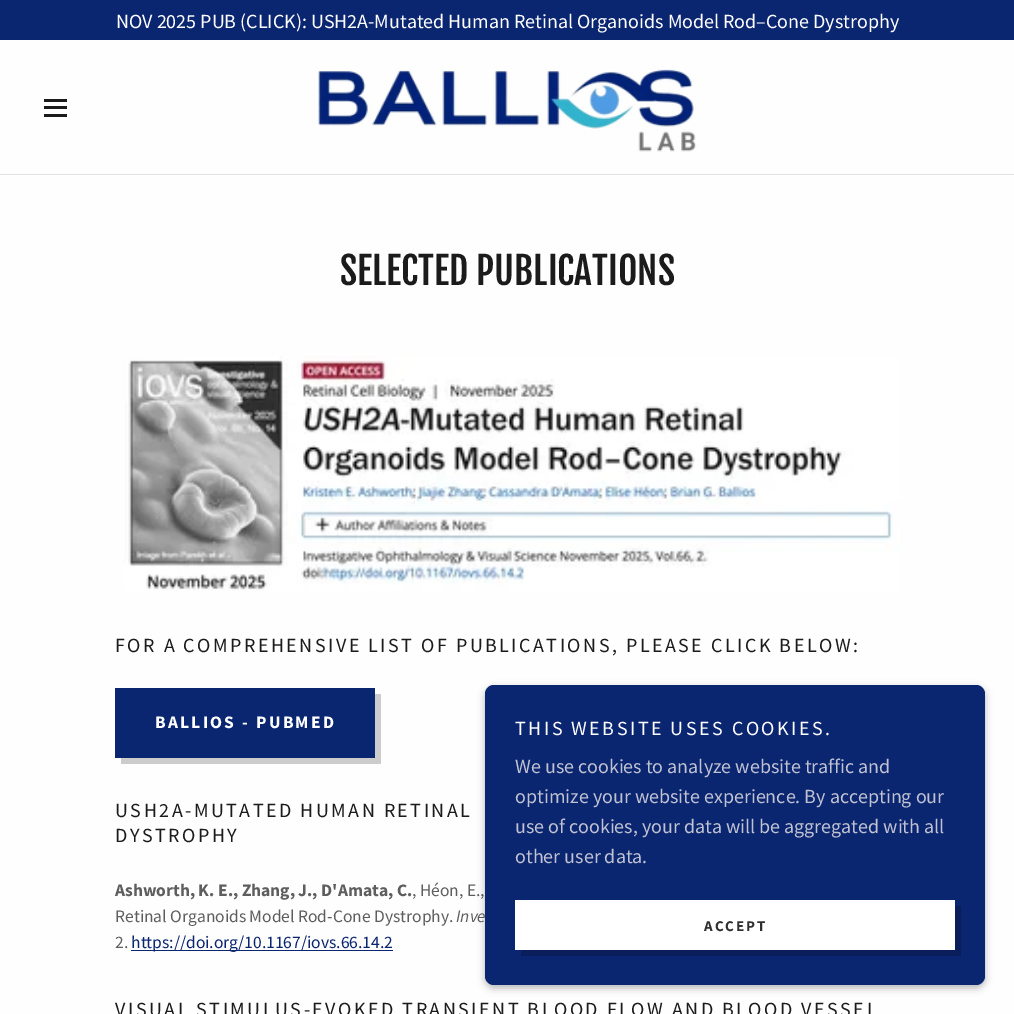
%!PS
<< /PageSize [1014 1014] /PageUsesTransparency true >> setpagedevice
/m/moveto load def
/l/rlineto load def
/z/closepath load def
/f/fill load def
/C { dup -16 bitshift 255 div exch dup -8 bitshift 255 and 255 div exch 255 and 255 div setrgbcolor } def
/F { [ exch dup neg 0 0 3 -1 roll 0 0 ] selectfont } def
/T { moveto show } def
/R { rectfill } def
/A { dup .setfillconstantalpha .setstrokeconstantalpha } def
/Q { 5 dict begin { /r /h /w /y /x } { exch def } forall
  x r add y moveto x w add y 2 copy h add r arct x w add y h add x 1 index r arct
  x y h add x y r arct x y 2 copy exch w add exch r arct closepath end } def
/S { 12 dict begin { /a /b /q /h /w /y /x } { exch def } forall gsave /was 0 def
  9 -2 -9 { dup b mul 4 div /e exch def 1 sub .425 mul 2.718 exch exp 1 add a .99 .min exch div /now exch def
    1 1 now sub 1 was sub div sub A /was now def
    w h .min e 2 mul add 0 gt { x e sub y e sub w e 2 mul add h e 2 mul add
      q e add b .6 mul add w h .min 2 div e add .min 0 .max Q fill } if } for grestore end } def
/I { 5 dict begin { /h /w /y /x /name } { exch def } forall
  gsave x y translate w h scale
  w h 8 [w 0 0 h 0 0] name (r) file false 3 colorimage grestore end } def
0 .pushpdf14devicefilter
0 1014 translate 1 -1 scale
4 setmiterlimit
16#FEFEFE C
0 0 1014 1014 R
16#0B2671 C
0 0 1014 40 R
/SourceSansPro-Regular 20 F
16#FFFFFF C
(NOV 2025 PUB \(CLICK\): USH2A-Mutated Human Retinal Organoids Model Rod–Cone Dystrophy) 116 28 T
16#1B1B1B C
44 99 23 3 R
44 106 23 3 R
44 114 23 3 R
(1.rgb) 318 69 379 83 I
16#E2E2E2 C
0 174 1014 1 R
/FjallaOne-Regular 37.5 F
16#1B1B1B C
(SELECTED PUBLICATIONS) 340 285 T
(2.rgb) 123 356 777 235 I
/SourceSansPro-Regular 20 F
115 652 m 2.5 0 (FOR A COMPREHENSIVE LIST OF PUBLICATIONS, PLEASE CLICK BELOW:) ashow
16#0B2671 C
115 688 260 70 R
16#CCCCCC C
121 758 m 0 6 l 260 0 l 0 -70 l -6 0 l 0 64 l z f
/SourceSansPro-Bold 17.5 F
16#FFFFFF C
155 728 m 2.25 0 (BALLIOS - PUBMED) ashow
/SourceSansPro-Regular 20 F
16#1B1B1B C
115 817 m 2.5 0 (USH2A-MUTATED HUMAN RETINAL) ashow
115 842 m 2.5 0 (DYSTROPHY) ashow
/SourceSansPro-Bold 17.5 F
16#5E5E5E C
(Ashworth, K. E., Zhang, J., D'Amata, C.) 115 896 T
/SourceSansPro-Regular 17.5 F
(, Héon, E.,) 412 896 T
(Retinal Organoids Model Rod-Cone Dystrophy.) 115 922 T
/SourceSansPro-Italic 17.5 F
(Inve) 456 922 T
/SourceSansPro-Regular 17.5 F
(2.) 115 948 T
16#0B2671 C
131 950 262 1 R
(https://doi.org/10.1167/iovs.66.14.2) 131 948 T
/SourceSansPro-Regular 20 F
16#1B1B1B C
115 1016 m 2.5 0 (VISUAL STIMULUS-EVOKED TRANSIENT BLOOD FLOW AND BLOOD VESSEL) ashow
16#000000 C
485 688 500 300 9 4 .3 S
16#0B2671 C
485 685 500 300 9 Q f
16#FFFFFF C
515 735 m 2.5 0 (THIS WEBSITE USES COOKIES.) ashow
16#C0C2D2 C
(We use cookies to analyze website traffic and) 515 773 T
(optimize your website experience. By accepting our) 515 803 T
(use of cookies, your data will be aggregated with all) 515 833 T
(other user data.) 515 863 T
16#FFFFFF C
515 900 440 50 R
16#091E5A C
521 950 m 0 6 l 440 0 l 0 -50 l -6 0 l 0 44 l z f
/SourceSansPro-Bold 15 F
16#303030 C
704 931 m 2 0 (ACCEPT) ashow
.poppdf14devicefilter showpage
